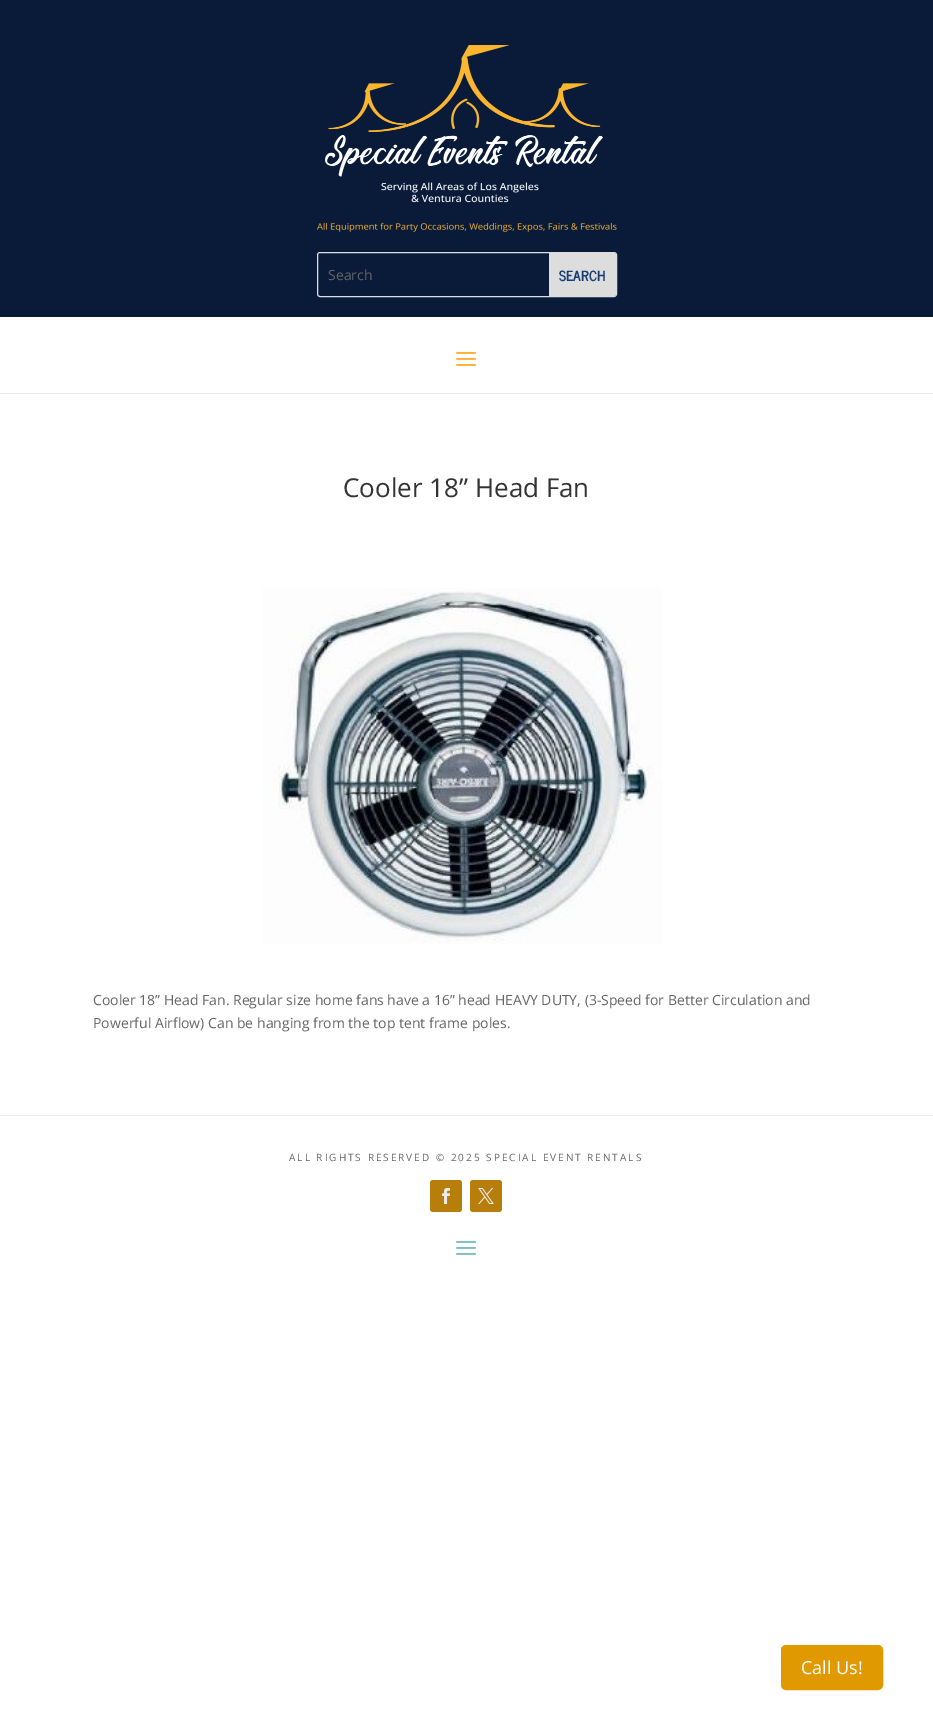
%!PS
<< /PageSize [933 1720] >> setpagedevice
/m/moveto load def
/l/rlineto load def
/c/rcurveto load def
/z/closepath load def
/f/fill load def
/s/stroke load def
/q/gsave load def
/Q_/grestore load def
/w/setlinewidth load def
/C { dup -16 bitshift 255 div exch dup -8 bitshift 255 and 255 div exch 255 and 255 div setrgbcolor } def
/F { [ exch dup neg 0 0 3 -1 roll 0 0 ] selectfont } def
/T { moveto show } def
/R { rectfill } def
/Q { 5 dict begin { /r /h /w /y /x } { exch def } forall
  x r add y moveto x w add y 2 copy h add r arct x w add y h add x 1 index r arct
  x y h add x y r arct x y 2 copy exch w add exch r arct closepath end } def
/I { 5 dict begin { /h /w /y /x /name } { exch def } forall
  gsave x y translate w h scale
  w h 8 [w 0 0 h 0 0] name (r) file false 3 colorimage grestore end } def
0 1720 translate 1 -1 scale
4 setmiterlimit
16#FFFFFF C
0 0 933 1720 R
16#091B39 C
0 0 933 317 R
(1.rgb) 317 45 300 187 I
16#DDDDDD C
317.5 252.5 299 44 2.5 Q s
/OpenSans-Regular 14 F
16#666666 C
(Search) 328 280 T
16#DDDDDD C
549 253 m 65 0 l 1 0 2 1 2 2 c 0 39 l 0 1 -1 2 -2 2 c -65 0 l z f
/NewsCycle-Bold 14 F
16#183D72 C
(SEARCH) 559 281 T
16#ECECEC C
0 393 933 1 R
(2.rgb) 456 351 20 15 I
/OpenSans-Regular 26 F
16#333333 C
(Cooler 18” Head Fan) 343 497 T
(3.rgb) 262 588 400 356 I
/OpenSans-Regular 14 F
16#666666 C
(Cooler 18” Head Fan. Regular size home fans have a 16” head HEAVY DUTY, \(3-Speed for Better Circulation and) 93 1005 T
(Powerful Airflow\) Can be hanging from the top tent frame poles.) 93 1028 T
16#ECECEC C
0 1115 933 1 R
/OpenSans-Regular 10 F
16#666666 C
289 1161 m 2 0 (ALL RIGHTS RESERVED © 2025 SPECIAL EVENT RENTALS) ashow
16#B87E0C C
430 1180 32 32 3 Q f
(4.rgb) 442 1188 8 16 I
470 1180 32 32 3 Q f
(5.rgb) 478 1188 16 16 I
(6.rgb) 456 1240 20 15 I
16#E09900 C
782 1646 100 43 4 Q q f Q_
2 w
s
/OpenSans-Regular 18 F
16#FFFFFF C
(Call Us!) 801 1674 T
showpage
